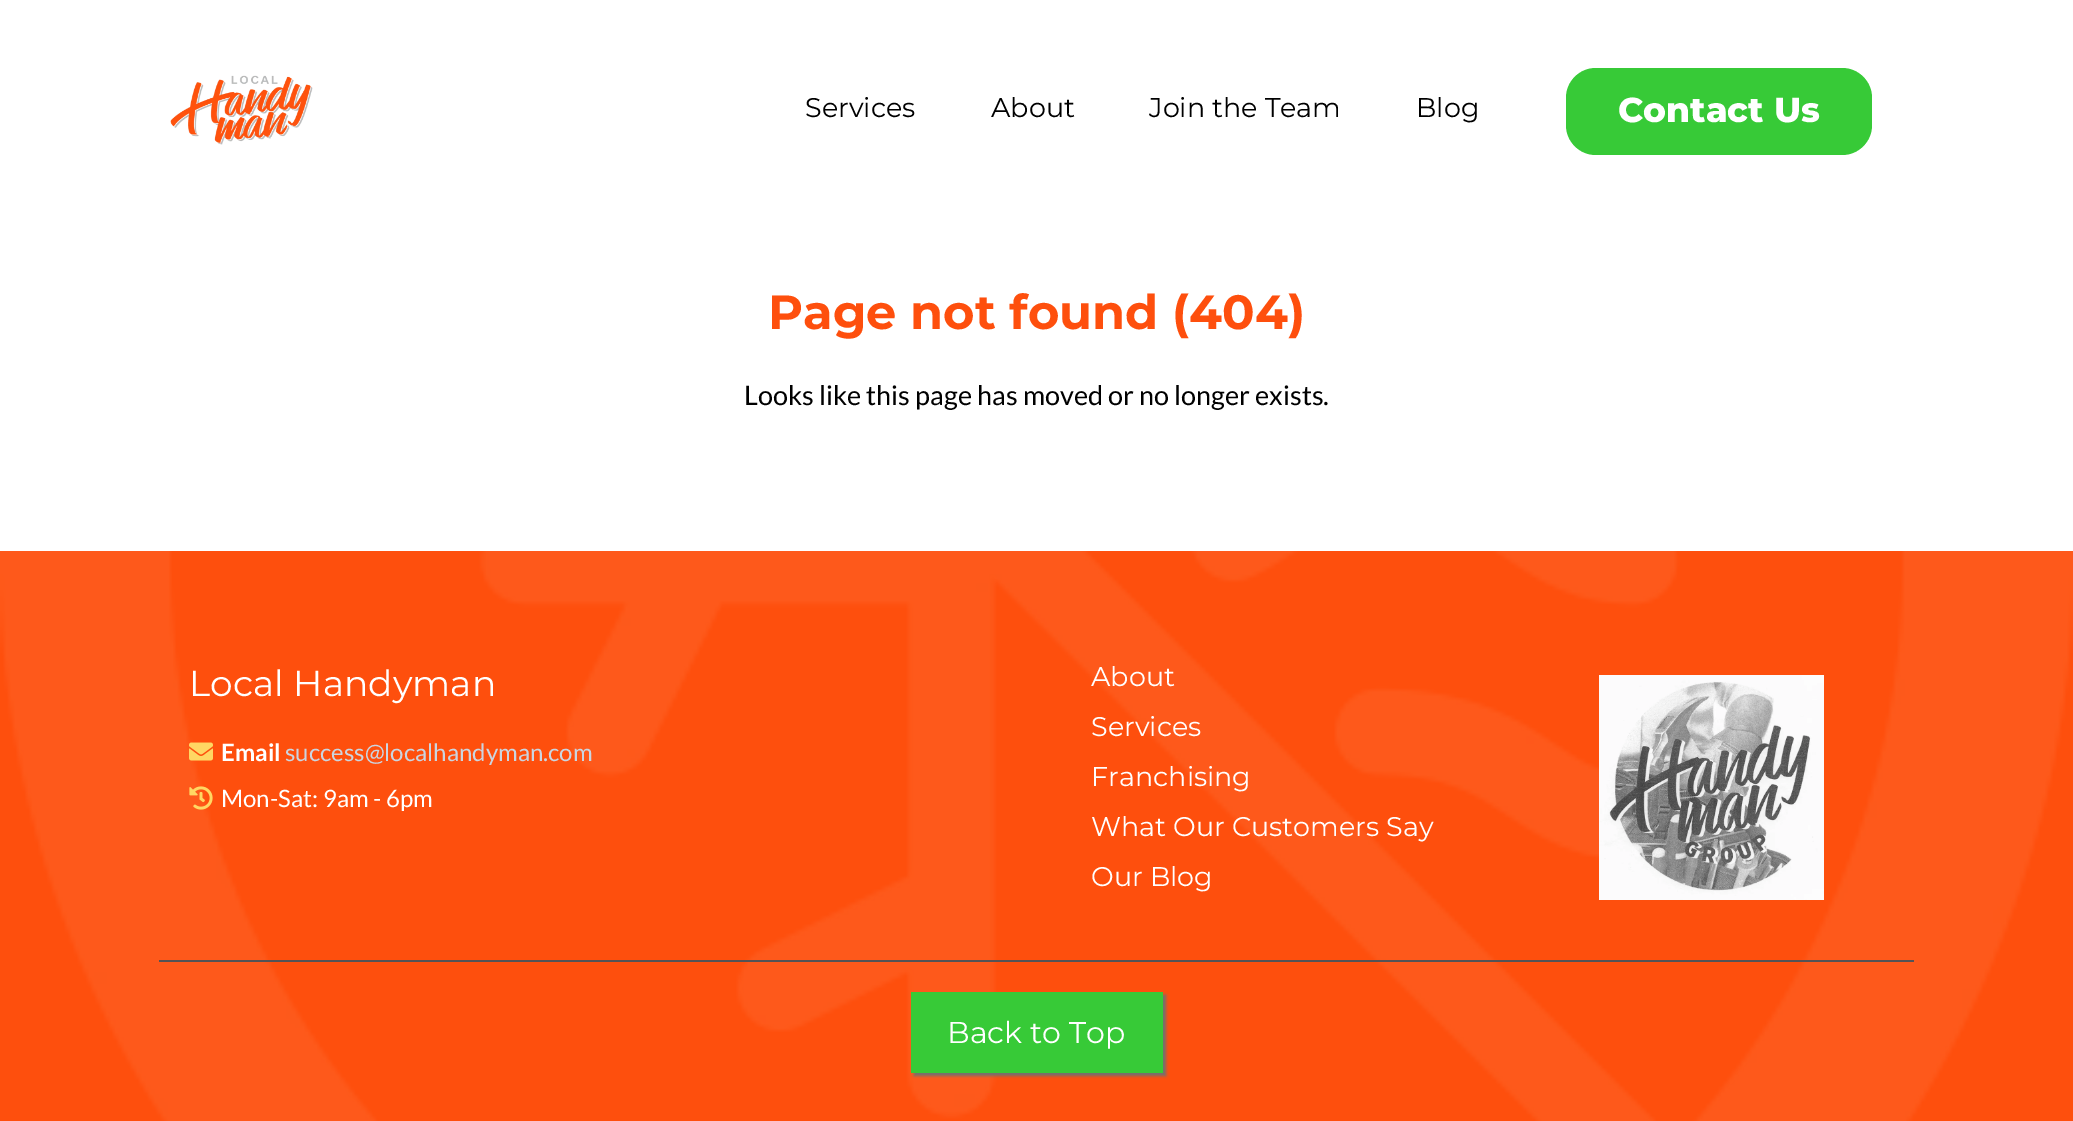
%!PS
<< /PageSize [2073 1121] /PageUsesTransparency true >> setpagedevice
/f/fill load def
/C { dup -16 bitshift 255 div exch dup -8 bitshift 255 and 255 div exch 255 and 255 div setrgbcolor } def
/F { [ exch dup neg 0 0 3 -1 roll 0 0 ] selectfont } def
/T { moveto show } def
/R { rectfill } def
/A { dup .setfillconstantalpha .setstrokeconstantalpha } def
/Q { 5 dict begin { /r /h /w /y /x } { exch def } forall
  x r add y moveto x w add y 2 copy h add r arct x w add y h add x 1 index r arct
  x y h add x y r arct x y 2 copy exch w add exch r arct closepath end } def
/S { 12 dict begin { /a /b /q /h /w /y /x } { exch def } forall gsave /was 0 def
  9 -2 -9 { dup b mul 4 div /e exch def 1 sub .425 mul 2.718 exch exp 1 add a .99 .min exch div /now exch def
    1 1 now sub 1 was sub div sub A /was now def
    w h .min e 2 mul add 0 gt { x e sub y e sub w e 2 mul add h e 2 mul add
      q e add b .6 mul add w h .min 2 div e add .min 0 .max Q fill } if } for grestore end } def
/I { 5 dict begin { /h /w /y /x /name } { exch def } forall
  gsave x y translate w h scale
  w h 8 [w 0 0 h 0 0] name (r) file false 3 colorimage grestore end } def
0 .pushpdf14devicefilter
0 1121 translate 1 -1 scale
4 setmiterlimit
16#FFFFFF C
0 0 2073 1121 R
(1.rgb) 170 75 143 70 I
/Montserrat-Regular 27 F
16#000000 C
(Services) 805 117 T
(About) 991 117 T
(Join the Team) 1149 117 T
(Blog) 1416 117 T
16#37CA37 C
1566 68 306 87 30 Q f
/Montserrat-ExtraBold 34.5 F
16#FFFFFF C
(Contact Us) 1618 122 T
/Montserrat-Bold 48 F
16#FE4F0D C
(Page not found \(404\)) 768 329 T
/Lato-Regular 27 F
16#000000 C
(Looks like this page has moved or no longer exists.) 744 405 T
16#FE4F0D C
0 551 2073 570 R
(2.rgb) 0 551 2073 570 I
16#535356 C
159 960 1755 2 R
/Montserrat-Regular 36 F
16#FFFFFF C
(Local Handyman) 189 696 T
(3.rgb) 189 742 24 19 I
/Lato-Bold 24 F
(Email) 221 761 T
/Lato-Regular 24 F
16#CBD5E0 C
(success@localhandyman.com) 285 761 T
(4.rgb) 189 786 24 24 I
16#FFFFFF C
(Mon-Sat: 9am - 6pm) 221 807 T
/Montserrat-Regular 27 F
(About) 1091 686 T
(Services) 1091 736 T
(Franchising) 1091 786 T
(What Our Customers Say) 1091 836 T
(Our Blog) 1091 886 T
(5.rgb) 1599 675 225 225 I
16#707070 C
914 995 252 81 0 1.5 1 S
16#37CA37 C
911 992 252 81 R
/Montserrat-Regular 30 F
16#FFFFFF C
(Back to Top) 947 1043 T
.poppdf14devicefilter showpage
